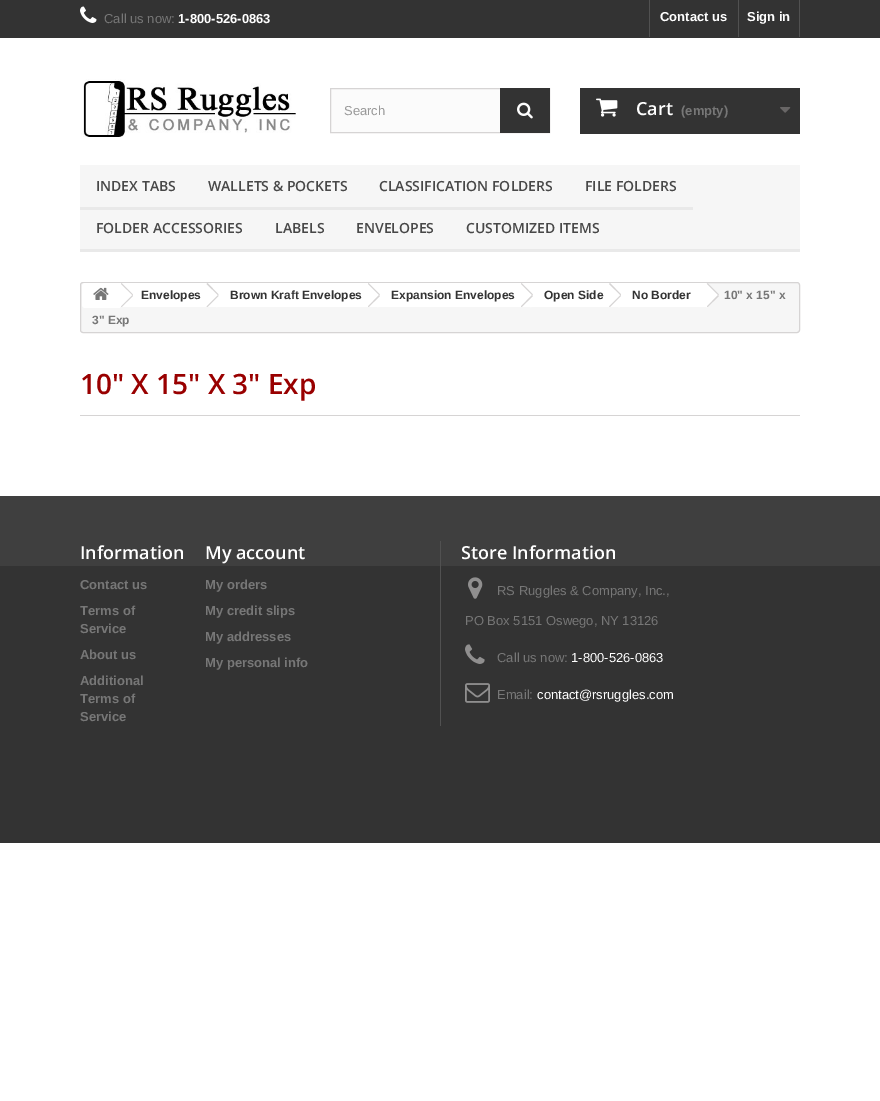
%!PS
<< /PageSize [880 1101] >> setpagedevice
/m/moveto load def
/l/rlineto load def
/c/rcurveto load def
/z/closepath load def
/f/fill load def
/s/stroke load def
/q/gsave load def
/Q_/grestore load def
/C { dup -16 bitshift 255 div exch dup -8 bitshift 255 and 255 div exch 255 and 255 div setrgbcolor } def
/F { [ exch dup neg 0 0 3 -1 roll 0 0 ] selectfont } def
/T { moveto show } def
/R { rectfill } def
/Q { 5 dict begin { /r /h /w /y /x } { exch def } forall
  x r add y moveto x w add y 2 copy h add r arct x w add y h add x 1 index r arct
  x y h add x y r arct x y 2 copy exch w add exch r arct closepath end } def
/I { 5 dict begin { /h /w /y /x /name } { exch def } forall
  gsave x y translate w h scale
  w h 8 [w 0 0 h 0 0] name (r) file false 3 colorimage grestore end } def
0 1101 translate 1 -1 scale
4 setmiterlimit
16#FFFFFF C
0 0 880 1101 R
16#333333 C
0 0 880 38 R
(1.rgb) 80 6 17 17 I
/LiberationSans-Regular 13 F
16#777777 C
(Call us now:) 104 23 T
/LiberationSans-Bold 13 F
16#FFFFFF C
(1-800-526-0863) 178 23 T
16#515151 C
649 0 1 37 R
16#FFFFFF C
(Contact us) 660 21 T
16#515151 C
799 0 1 37 R
738 0 1 37 R
16#FFFFFF C
(Sign in) 747 21 T
(2.rgb) 81 79 215 58 I
16#FBFBFB C
331 89 169 43 R
16#D6D4D4 C
330.5 88.5 219 44 rectstroke
/LiberationSans-Regular 13 F
16#999999 C
(Search) 344 115 T
16#333333 C
500 88 50 45 R
(3.rgb) 517 102 16 17 I
580 88 220 46 R
(4.rgb) 596 98 22 19 I
/OpenSans-SemiBold 18 F
16#FFFFFF C
(Cart) 636 115 T
/LiberationSans-Bold 13 F
16#777777 C
(\(empty\)) 681 115 T
(5.rgb) 780 107 11 6 I
16#F6F6F6 C
80 165 720 84 R
16#E9E9E9 C
80 249 720 3 R
80 207 613 3 R
/OpenSans-SemiBold 14 F
16#484848 C
(INDEX TABS) 96 191 T
(WALLETS & POCKETS) 208 191 T
(CLASSIFICATION FOLDERS) 379 191 T
(FILE FOLDERS) 585 191 T
(FOLDER ACCESSORIES) 96 233 T
(LABELS) 275 233 T
(ENVELOPES) 356 233 T
(CUSTOMIZED ITEMS) 466 233 T
16#F6F6F6 C
80.5 282.5 719 50 2.5 Q q f Q_
16#D6D4D4 C
s
16#FFFFFF C
85 283 m 35 0 l 0 25 l -35 0 l -1.5 0 -3 -1.5 -3 -3 c 0 -19 l 0 -1.5 1.5 -3 3 -3 c z f
(6.rgb) 93 287 16 13 I
120 283 88 24 R
16#D6D4D4 C
121.5 283 m 11.5 11.5 l -.5 .5 l -11.5 -11 l z 132.5 295 m .5 1 l -11.5 11 l -.5 -.5 l z f
/LiberationSans-Bold 12 F
16#333333 C
(Envelopes) 141 299 T
16#FFFFFF C
218 284 m 10 10 l 1 .5 1 2 0 2.5 c -10 10 l -.5 1 -2 1 -2.5 0 c -10 -10 l -1 -.5 -1 -2 0 -2.5 c 10 -10 l .5 -1 2 -1 2.5 0 c z f
208 283 161 24 R
16#D6D4D4 C
207.5 283 m 11 11.5 l -.5 .5 l -11.5 -11 l z 218 295 m .5 1 l -11 11 l -1 -.5 l z f
16#333333 C
(Brown Kraft Envelopes) 230 299 T
16#FFFFFF C
379 284 m 10 10 l 1 .5 1 2 0 2.5 c -10 10 l -.5 1 -2 1 -2.5 0 c -10 -10 l -1 -.5 -1 -2 0 -2.5 c 10 -10 l .5 -1 2 -1 2.5 0 c z f
369 283 153 24 R
16#D6D4D4 C
368.5 283 m 11.5 11.5 l -1 .5 l -11 -11 l z 379 295 m 1 1 l -11.5 11 l -.5 -.5 l z f
16#333333 C
(Expansion Envelopes) 391 299 T
16#FFFFFF C
532 284 m 10 10 l 1 .5 1 2 0 2.5 c -10 10 l -.5 1 -2 1 -2.5 0 c -10 -10 l -1 -.5 -1 -2 0 -2.5 c 10 -10 l .5 -1 2 -1 2.5 0 c z f
522 283 88 24 R
16#D6D4D4 C
521.5 283 m 11.5 11.5 l -1 .5 l -11 -11 l z 532 295 m 1 1 l -11.5 11 l -.5 -.5 l z f
16#333333 C
(Open Side) 544 299 T
16#FFFFFF C
620.5 284 m 10 10 l .5 .5 .5 2 0 2.5 c -10 10 l -.5 1 -2 1 -3 0 c -9.5 -10 l -1 -.5 -1 -2 0 -2.5 c 9.5 -10 l 1 -1 2.5 -1 3 0 c z f
610 283 96 24 R
16#D6D4D4 C
610 283 m 11 11.5 l -.5 .5 l -11.5 -11 l z 620.5 295 m .5 1 l -11 11 l -1 -.5 l z f
16#333333 C
(No Border) 632 299 T
16#FFFFFF C
708 284 m 10 10 l 1 .5 1 2 0 2.5 c -10 10 l -.5 1 -2 1 -2.5 0 c -10 -10 l -1 -.5 -1 -2 0 -2.5 c 10 -10 l .5 -1 2 -1 2.5 0 c z f
16#D6D4D4 C
707.5 283 m 11.5 11.5 l -1 .5 l -11 -11 l z 718 295 m 1 1 l -11.5 11 l -.5 -.5 l z f
16#777777 C
(10" x 15" x) 724 299 T
(3" Exp) 92 324 T
16#D6D4D4 C
80 415 720 1 R
/OpenSans-SemiBold 28 F
16#990000 C
(10" X 15" X 3" Exp) 80 394 T
16#333333 C
0 566 880 277 R
16#3F3F3F C
0 496 880 70 R
/OpenSans-SemiBold 18 F
16#FFFFFF C
(Information) 80 559 T
/LiberationSans-Bold 13 F
16#777777 C
(Contact us) 80 589 T
(Terms of) 80 615 T
(Service) 80 633 T
(About us) 80 659 T
(Additional) 80 685 T
(Terms of) 80 703 T
(Service) 80 721 T
/OpenSans-SemiBold 18 F
16#FFFFFF C
(My account) 205 559 T
/LiberationSans-Bold 13 F
16#777777 C
(My orders) 205 589 T
(My credit slips) 205 615 T
(My addresses) 205 641 T
(My personal info) 205 667 T
16#515151 C
440 541 1 185 R
/OpenSans-SemiBold 18 F
16#FFFFFF C
(Store Information) 461 559 T
(7.rgb) 468 577 15 22 I
/LiberationSans-Regular 13 F
16#777777 C
(RS Ruggles & Company, Inc.,) 497 595 T
(PO Box 5151 Oswego, NY 13126) 465 625 T
(8.rgb) 465 644 20 20 I
(Call us now:) 497 662 T
16#FFFFFF C
(1-800-526-0863) 571 662 T
(9.rgb) 465 683 25 20 I
16#777777 C
(Email:) 497 699 T
16#FFFFFF C
(contact@rsruggles.com) 537 699 T
showpage
